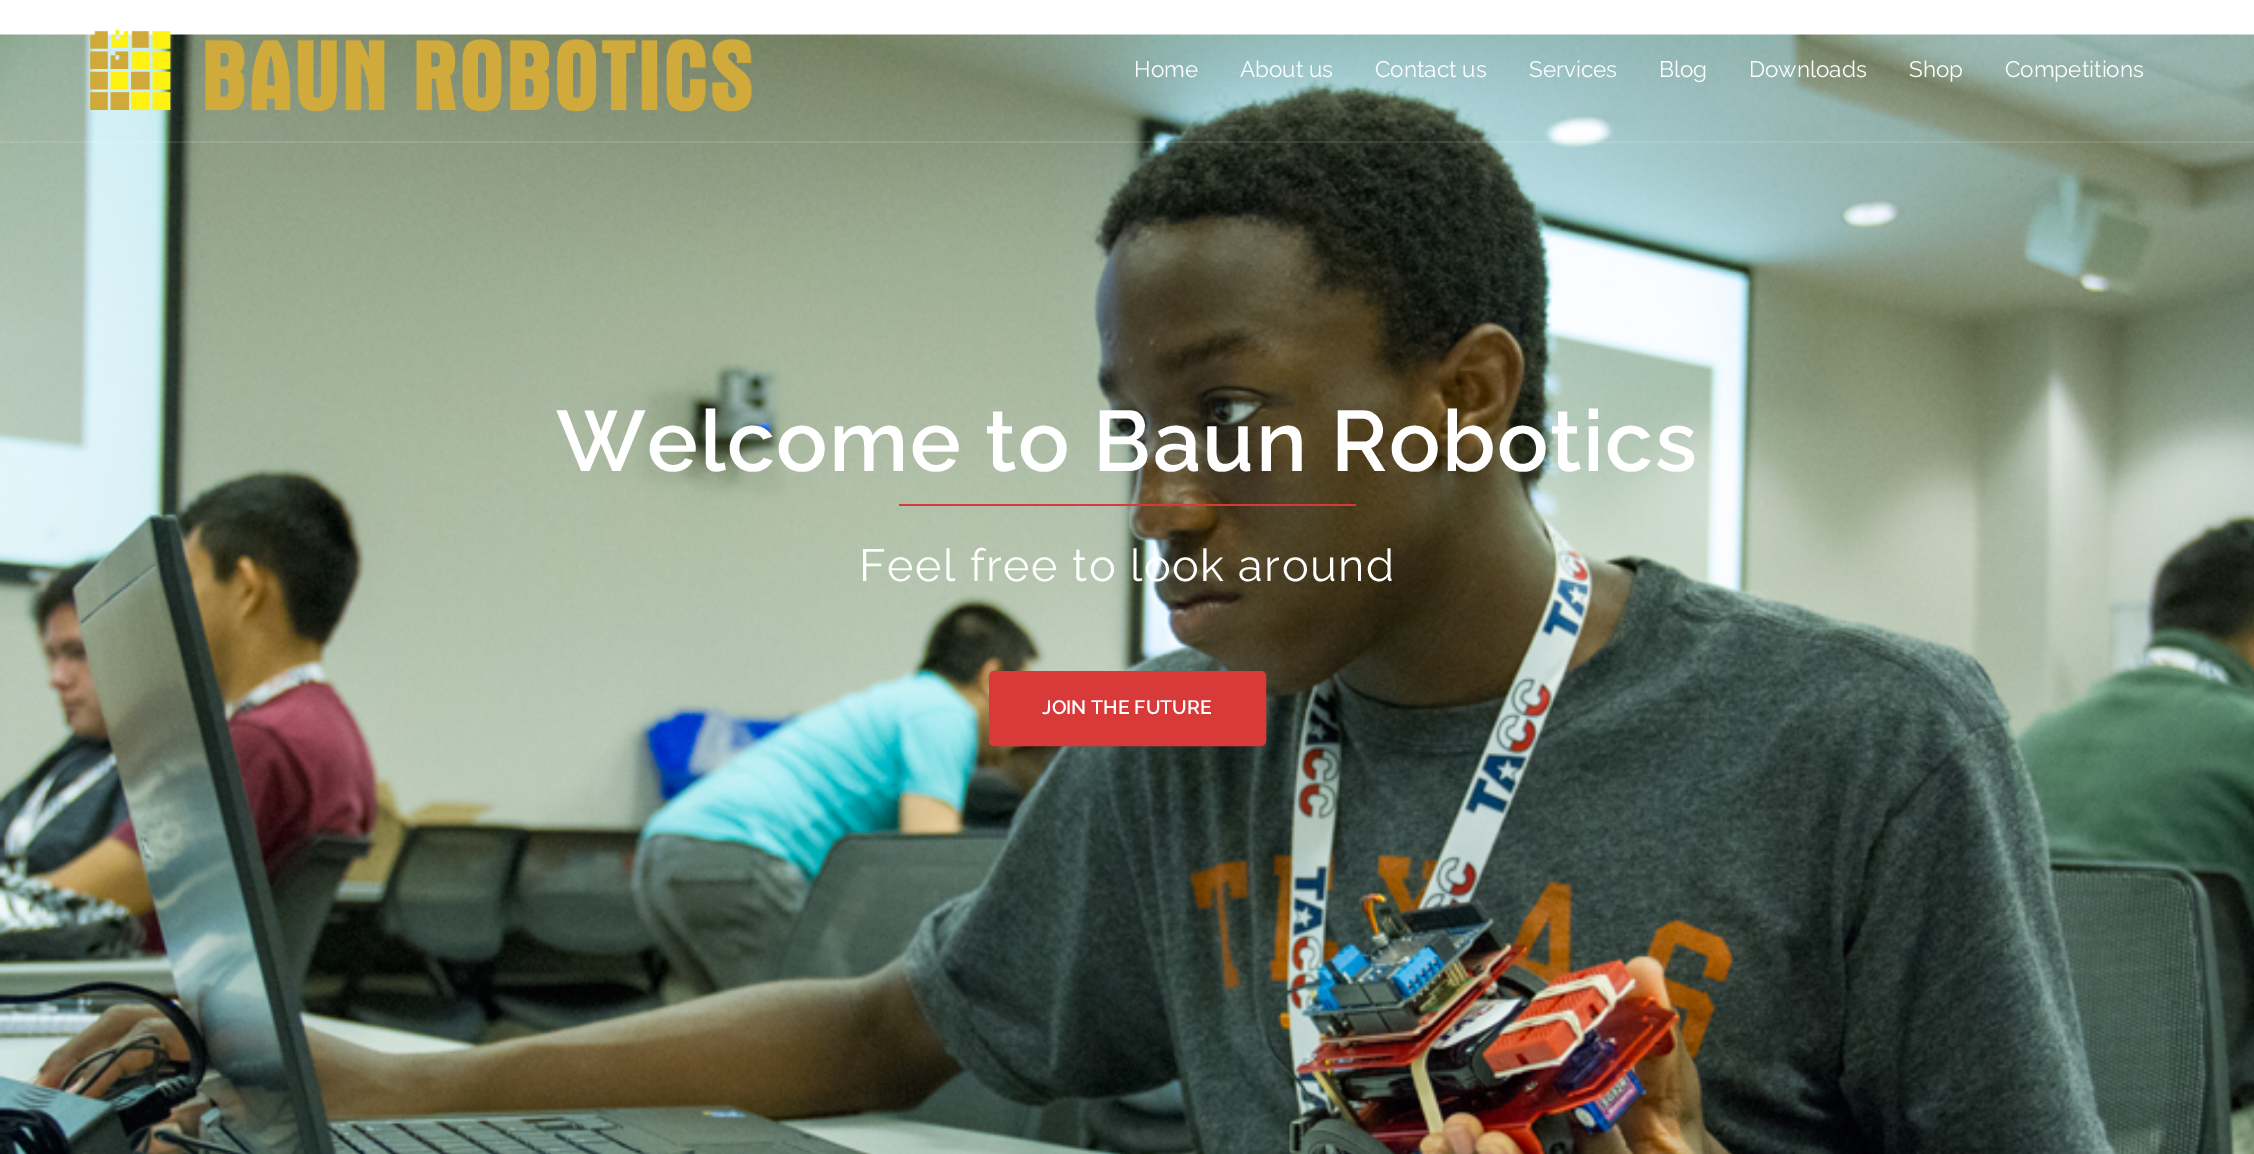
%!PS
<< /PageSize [2254 1154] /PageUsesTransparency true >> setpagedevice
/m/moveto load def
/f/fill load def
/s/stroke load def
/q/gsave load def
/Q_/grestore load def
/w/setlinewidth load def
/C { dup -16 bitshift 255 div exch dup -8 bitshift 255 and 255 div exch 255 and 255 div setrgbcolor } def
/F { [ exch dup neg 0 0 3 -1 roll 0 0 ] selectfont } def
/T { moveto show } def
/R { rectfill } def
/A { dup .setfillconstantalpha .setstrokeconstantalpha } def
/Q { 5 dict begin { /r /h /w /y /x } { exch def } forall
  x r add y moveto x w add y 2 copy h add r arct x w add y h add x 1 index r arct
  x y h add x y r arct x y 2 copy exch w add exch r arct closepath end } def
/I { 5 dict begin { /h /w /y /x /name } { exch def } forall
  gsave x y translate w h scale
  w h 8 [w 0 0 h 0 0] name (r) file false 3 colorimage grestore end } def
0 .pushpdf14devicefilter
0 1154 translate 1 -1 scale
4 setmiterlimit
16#FFFFFF C
0 0 2254 1154 R
(2.rgb) 0 34 2254 1120 I
0.1 A
0 141 2254 2 R
1 A
(1.rgb) 90 30 662 82 I
/Raleway-Regular 22.5 F
(Home) 1134 77 T
(About us) 1240 77 T
(Contact us) 1375 77 T
(Services) 1529 77 T
(Blog) 1659 77 T
(Downloads) 1749 77 T
(Shop) 1909 77 T
(Competitions) 2005 77 T
/Raleway-SemiBold 85.5 F
556 471 m 1.5 0 (Welcome to Baun Robotics) ashow
16#D83A3A C
899 504 457 2 R
/Raleway-Regular 45 F
16#FFFFFF C
859 581 m 1.5 0 (Feel free to look around) ashow
16#D83A3A C
990 672 275 73 4 Q q f Q_
2 w
s
/Raleway-SemiBold 19.5 F
16#FFFFFF C
(JOIN THE FUTURE) 1042 714 T
.poppdf14devicefilter showpage
